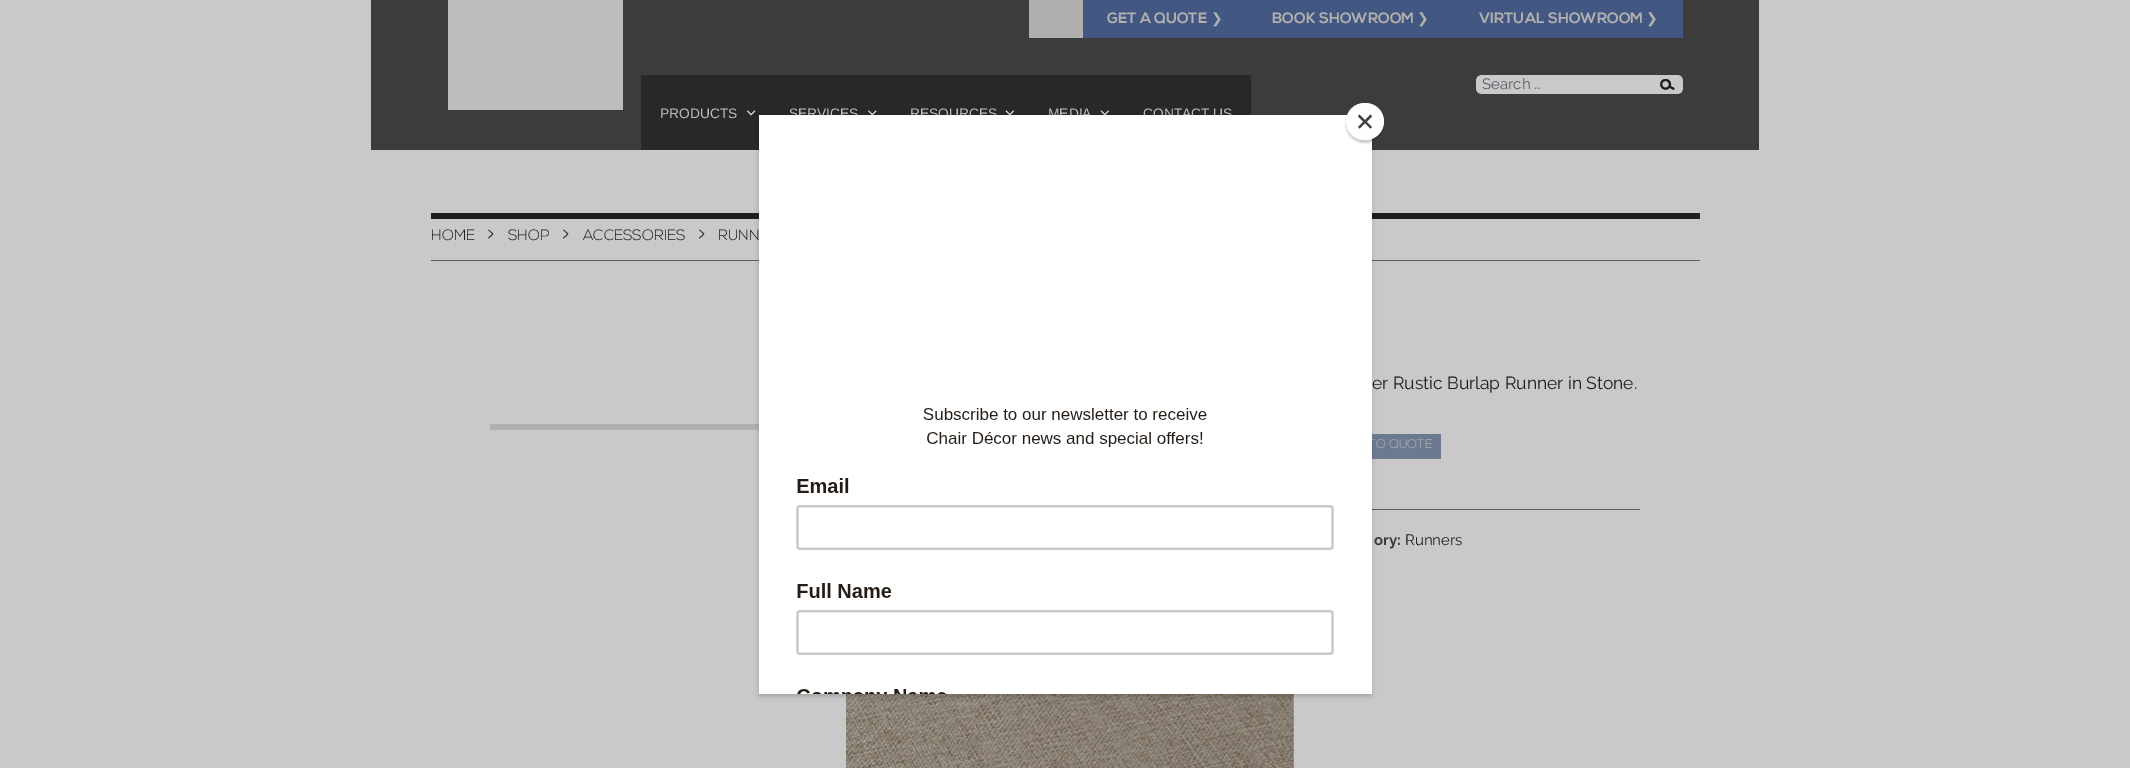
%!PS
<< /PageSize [2130 768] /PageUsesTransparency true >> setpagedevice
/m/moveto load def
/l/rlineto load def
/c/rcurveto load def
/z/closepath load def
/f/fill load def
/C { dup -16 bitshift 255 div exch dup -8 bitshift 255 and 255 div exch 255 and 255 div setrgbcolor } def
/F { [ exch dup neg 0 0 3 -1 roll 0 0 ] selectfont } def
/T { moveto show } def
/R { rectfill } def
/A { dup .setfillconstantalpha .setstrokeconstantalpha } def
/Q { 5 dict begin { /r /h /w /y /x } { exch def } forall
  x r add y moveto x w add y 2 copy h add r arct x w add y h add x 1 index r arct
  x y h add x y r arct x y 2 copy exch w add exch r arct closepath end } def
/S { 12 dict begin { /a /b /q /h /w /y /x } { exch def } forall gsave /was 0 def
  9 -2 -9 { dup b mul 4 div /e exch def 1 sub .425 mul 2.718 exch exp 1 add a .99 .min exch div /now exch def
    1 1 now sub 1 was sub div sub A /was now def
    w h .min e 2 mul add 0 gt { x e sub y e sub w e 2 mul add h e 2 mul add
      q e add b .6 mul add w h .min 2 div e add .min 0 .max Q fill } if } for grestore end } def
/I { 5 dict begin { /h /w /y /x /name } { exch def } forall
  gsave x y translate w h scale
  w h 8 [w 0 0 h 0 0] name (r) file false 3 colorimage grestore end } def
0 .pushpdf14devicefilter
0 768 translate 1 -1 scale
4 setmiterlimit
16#C9C9C9 C
0 0 2130 768 R
16#3E3C3A C
371 0 1388 150 R
16#BDBDBD C
448 0 175 110 R
16#B1B0AF C
1029 0 54 38 R
16#425781 C
1083 0 600 38 R
/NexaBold-Bold 15 F
16#B1B0AF C
(GET A QUOTE) 1107 23 T
/DejaVuSans-Regular 14 F
(❯) 1211 23 T
/NexaBold-Bold 15 F
(BOOK SHOWROOM) 1272 23 T
/DejaVuSans-Regular 14 F
(❯) 1417 23 T
/NexaBold-Bold 15 F
(VIRTUAL SHOWROOM) 1479 23 T
/DejaVuSans-Regular 14 F
(❯) 1646 23 T
16#C9C9C9 C
1482 75 m 172 0 l 0 19 l -172 0 l -3.5 0 -6 -2.5 -6 -6 c 0 -7 l 0 -3.5 2.5 -6 6 -6 c z f
/Raleway-Regular 15 F
16#555C63 C
(Search …) 1482 89 T
16#C9C9C9 C
1653 75 m 24 0 l 3.5 0 6 2.5 6 6 c 0 7 l 0 3.5 -2.5 6 -6 6 c -24 0 l z f
(1.rgb) 1660 79 15 11 I
16#282828 C
641 75 610 75 R
/LiberationSans-Regular 13.75 F
16#BEBEBE C
(PRODUCTS) 660 118 T
16#201F1E C
431 213 1269 6 R
16#605C5B C
431 260 1269 1 R
16#B1B0AF C
490 424 269 6 R
16#6B7A91 C
1372 434 69 25 R
16#605C5B C
1372 509 268 1 R
(6.rgb) 1293 694 1 74 I
(5.rgb) 846 694 448 74 I
16#000000 C
759 118 612 578 0 2.5 .2 S
(2.rgb) 746 110 10 6 I
16#BEBEBE C
(SERVICES) 789 118 T
(3.rgb) 868 110 9 5 I
(RESOURCES) 910 118 T
(4.rgb) 1005 110 9 5 I
(MEDIA) 1048 118 T
(4.rgb) 1100 110 9 5 I
(CONTACT US) 1143 118 T
/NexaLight-Light 15 F
16#201F1E C
(HOME) 431 240 T
/NexaLight-Light 22 F
(>) 487 241 T
/NexaLight-Light 15 F
(SHOP) 508 240 T
/NexaLight-Light 22 F
(>) 562 241 T
/NexaLight-Light 15 F
(ACCESSORIES) 583 240 T
/NexaLight-Light 22 F
(>) 698 241 T
/NexaLight-Light 15 F
(RUNN) 718 240 T
/Raleway-Regular 17.5 F
(er Rustic Burlap Runner in Stone.) 1372 389 T
/NexaLight-Light 12.5 F
16#B1B0AF C
(TO QUOTE) 1368 448 T
/Raleway-Bold 15 F
16#3E3C3A C
(ory:) 1374 545 T
/Raleway-Regular 15 F
16#201F1E C
(Runners) 1405 545 T
(7.rgb) 759 115 613 579 I
16#000000 C
1346 105 38 38 19 1 .2 S
16#FFFFFF C
1346 103 38 37 18.5 Q f
16#414141 C
1370.5 114.5 m 1.5 2 l -12.5 12 l -1.5 -1.5 l z f
1358 116.5 m 1.5 -2 l 12.5 12.5 l -1.5 1.5 l z f
.poppdf14devicefilter showpage
